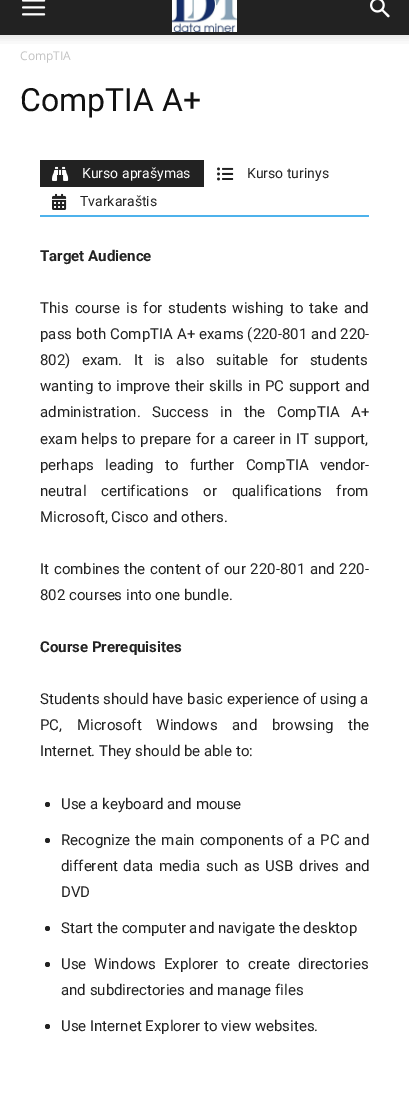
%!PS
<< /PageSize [409 1110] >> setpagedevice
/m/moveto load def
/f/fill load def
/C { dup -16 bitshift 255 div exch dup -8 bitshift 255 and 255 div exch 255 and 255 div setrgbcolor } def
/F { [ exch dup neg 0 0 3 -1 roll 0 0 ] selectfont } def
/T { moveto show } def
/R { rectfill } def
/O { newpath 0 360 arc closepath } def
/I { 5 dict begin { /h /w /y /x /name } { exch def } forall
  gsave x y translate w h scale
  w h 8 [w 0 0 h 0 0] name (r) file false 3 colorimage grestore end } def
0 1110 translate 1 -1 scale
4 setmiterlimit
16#FFFFFF C
0 0 409 1110 R
16#222222 C
0 0 409 35 R
(1.rgb) 22 0 24 16 I
(2.rgb) 172 0 65 32 I
(3.rgb) 370 0 20 18 I
(4.rgb) 0 35 409 9 I
/OpenSans-Regular 12 F
16#C3C3C3 C
(CompTIA) 20 60 T
/Roboto-Regular 32 F
16#111111 C
(CompTIA A+) 20 111 T
16#4DB2EC C
40 215 329 2 R
16#222222 C
40 160 164 27 R
(5.rgb) 52 166 17 15 I
/Roboto-Regular 14 F
16#FFFFFF C
(Kurso aprašymas) 82 178 T
(6.rgb) 217 167 17 14 I
16#222222 C
(Kurso turinys) 247 178 T
(7.rgb) 52 193 15 17 I
(Tvarkaraštis) 80 206 T
/Roboto-Bold 15 F
(Target Audience) 40 261 T
/Roboto-Regular 15 F
40 313 m 2.25 0 32 (This course is for students wishing to take and) widthshow
40 339 m .25 0 32 (pass both CompTIA A+ exams \(220-801 and 220-) widthshow
40 365 m 7.5 0 32 (802\) exam. It is also suitable for students) widthshow
40 391 m 1 0 32 (wanting to improve their skills in PC support and) widthshow
40 417 m 8 0 32 (administration. Success in the CompTIA A+) widthshow
40 444 m 1 0 32 (exam helps to prepare for a career in IT support,) widthshow
40 470 m 7.5 0 32 (perhaps leading to further CompTIA vendor-) widthshow
40 496 m 11 0 32 (neutral certifications or qualifications from) widthshow
(Microsoft, Cisco and others.) 40 522 T
40 574 m 1 0 32 (It combines the content of our 220-801 and 220-) widthshow
(802 courses into one bundle.) 40 600 T
/Roboto-Bold 15 F
(Course Prerequisites) 40 652 T
/Roboto-Regular 15 F
(Students should have basic experience of using a) 40 704 T
40 730 m 11 0 32 (PC, Microsoft Windows and browsing the) widthshow
(Internet. They should be able to:) 40 756 T
47.5 804.5 2.5 O f
(Use a keyboard and mouse) 61 809 T
47.5 840.5 2.5 O f
61 845 m 1.25 0 32 (Recognize the main components of a PC and) widthshow
61 871 m 2 0 32 (different data media such as USB drives and) widthshow
(DVD) 61 897 T
47.5 928.5 2.5 O f
(Start the computer and navigate the desktop) 61 933 T
47.5 964.5 2.5 O f
61 969 m 4.25 0 32 (Use Windows Explorer to create directories) widthshow
(and subdirectories and manage files) 61 995 T
47.5 1026.5 2.5 O f
(Use Internet Explorer to view websites.) 61 1031 T
showpage
